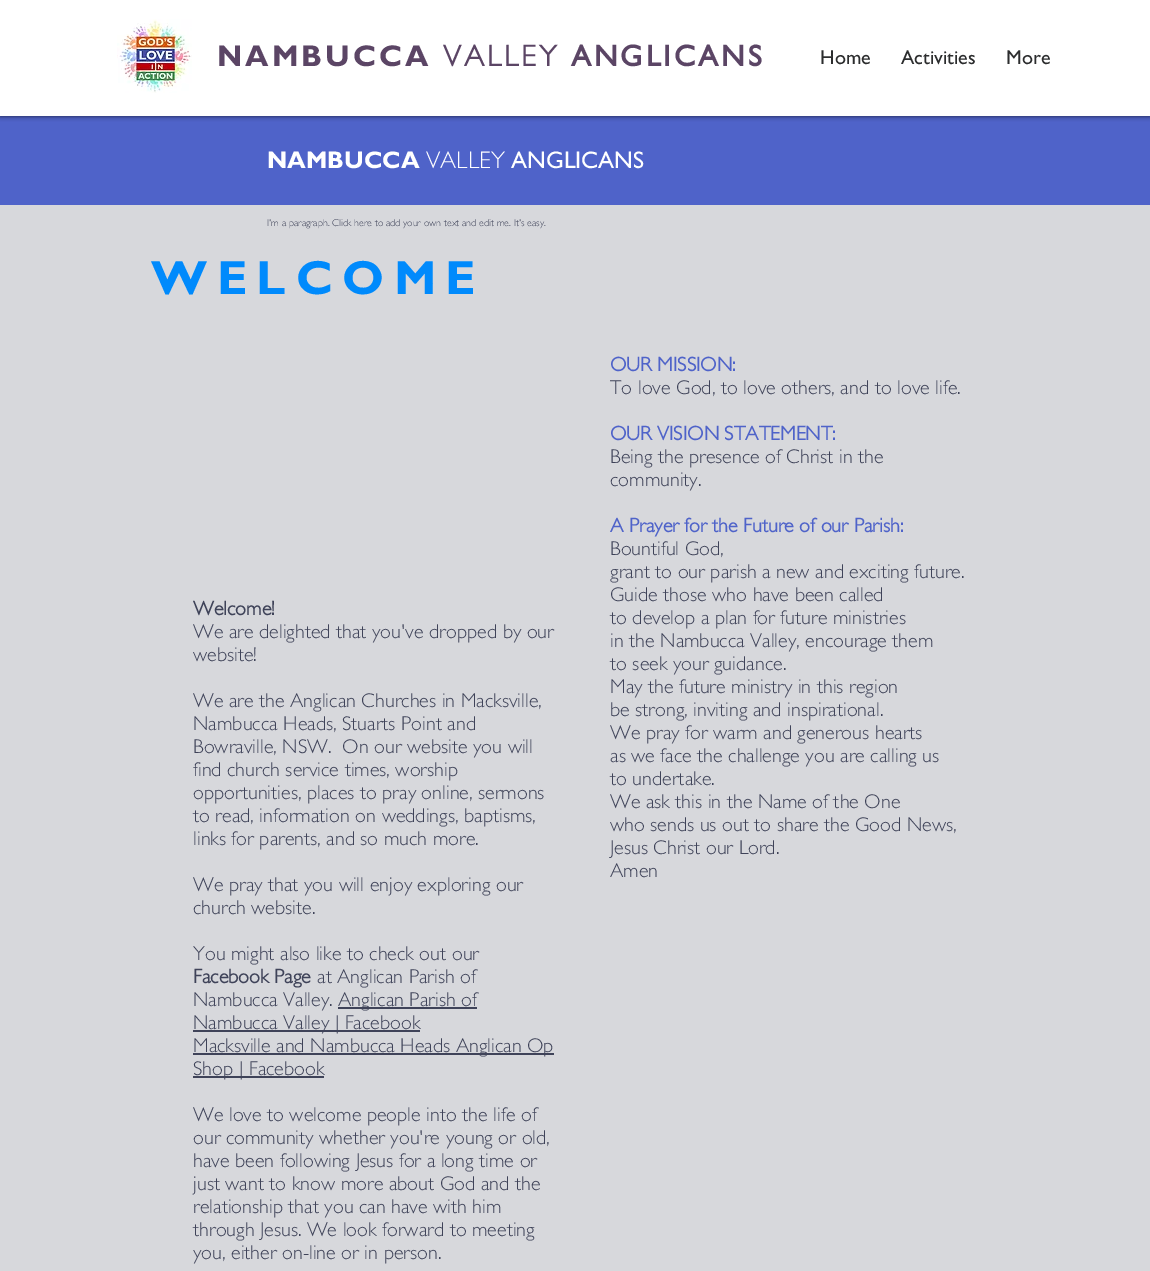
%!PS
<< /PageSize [1150 1271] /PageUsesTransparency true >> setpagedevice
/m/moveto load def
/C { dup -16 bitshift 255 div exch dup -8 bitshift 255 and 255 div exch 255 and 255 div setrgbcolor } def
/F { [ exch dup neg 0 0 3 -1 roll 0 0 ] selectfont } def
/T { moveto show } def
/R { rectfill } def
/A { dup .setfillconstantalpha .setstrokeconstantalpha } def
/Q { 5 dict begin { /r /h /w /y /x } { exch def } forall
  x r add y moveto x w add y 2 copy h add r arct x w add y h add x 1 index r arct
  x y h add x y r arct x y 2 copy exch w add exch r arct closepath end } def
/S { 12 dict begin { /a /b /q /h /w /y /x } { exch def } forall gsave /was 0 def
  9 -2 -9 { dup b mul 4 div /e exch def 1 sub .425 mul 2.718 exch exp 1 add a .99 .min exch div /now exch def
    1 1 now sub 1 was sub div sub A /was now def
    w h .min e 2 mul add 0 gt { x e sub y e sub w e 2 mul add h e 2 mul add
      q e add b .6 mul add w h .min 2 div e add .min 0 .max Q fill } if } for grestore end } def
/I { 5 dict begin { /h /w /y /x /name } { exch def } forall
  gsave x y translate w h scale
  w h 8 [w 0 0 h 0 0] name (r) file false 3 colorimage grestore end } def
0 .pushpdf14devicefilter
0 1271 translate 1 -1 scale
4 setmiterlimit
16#D7D8DC C
0 0 1150 1271 R
16#4F63C9 C
0 116 1150 89 R
16#000000 C
0 0 1150 116 0 2.5 .7 S
16#FFFFFF C
0 0 1150 116 R
(1.rgb) 117 19 75 74 I
/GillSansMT-Bold 30 F
16#5B4565 C
217 66 m 3 0 (NAMBUCCA) ashow
/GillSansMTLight-Bold 30 F
443 66 m 3 0 (VALLEY) ashow
/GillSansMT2-Bold 30 F
571 66 m 3 0 (ANGLICANS) ashow
/GillSansMT-Regular 20 F
16#2C2D2E C
(Home) 820 64 T
(Activities) 901 64 T
(More) 1006 64 T
/GillSansMT-Bold 24 F
16#FFFFFF C
(NAMBUCCA) 267 168 T
/GillSansMTLight-Light 24 F
(VALLEY) 426 168 T
/GillSansMT-Regular 24 F
(ANGLICANS) 511 168 T
/GillSansMTLight-Light 10 F
16#3F4359 C
(I'm a paragraph. Click here to add your own text and edit me. It's easy.) 267 226 T
/GillSansMT-Bold 48 F
16#008AFC C
151 294 m 9.5 0 (WELCOME) ashow
/GillSansMTLight-Bold 20 F
16#3F4359 C
(Welcome!) 193 615 T
/GillSansMTLight-Light 20 F
(We are delighted that you've dropped by our) 193 638 T
(website!) 193 661 T
(We are the Anglican Churches in Macksville,) 193 707 T
(Nambucca Heads, Stuarts Point and) 193 730 T
(Bowraville, NSW.  On our website you will) 193 753 T
(find church service times, worship) 193 776 T
(opportunities, places to pray online, sermons) 193 799 T
(to read, information on weddings, baptisms,) 193 822 T
(links for parents, and so much more.) 193 845 T
(We pray that you will enjoy exploring our) 193 891 T
(church website.) 193 914 T
(You might also like to check out our) 193 960 T
/GillSansMTLight-Bold 20 F
(Facebook Page) 193 983 T
/GillSansMTLight-Light 20 F
(at Anglican Parish of) 317 983 T
(Nambucca Valley.) 193 1006 T
338 1007 139 2 R
(Anglican Parish of) 338 1006 T
193 1030 227 2 R
(Nambucca Valley | Facebook) 193 1029 T
193 1053 361 2 R
(Macksville and Nambucca Heads Anglican Op) 193 1052 T
193 1076 131 2 R
(Shop | Facebook) 193 1075 T
(We love to welcome people into the life of) 193 1121 T
(our community whether you're young or old,) 193 1144 T
(have been following Jesus for a long time or) 193 1167 T
(just want to know more about God and the) 193 1190 T
(relationship that you can have with him) 193 1213 T
(through Jesus. We look forward to meeting) 193 1236 T
(you, either on-line or in person.) 193 1259 T
/GillSansMTLight-Bold 20 F
16#4F63C9 C
(OUR MISSION:) 610 371 T
/GillSansMTLight-Light 20 F
16#3F4359 C
(To love God, to love others, and to love life.) 610 394 T
/GillSansMTLight-Bold 20 F
16#4F63C9 C
(OUR VISION STATEMENT:) 610 440 T
/GillSansMTLight-Light 20 F
16#3F4359 C
(Being the presence of Christ in the) 610 463 T
(community.) 610 486 T
/GillSansMTLight-Bold 20 F
16#4F63C9 C
(A Prayer for the Future of our Parish:) 610 532 T
/GillSansMTLight-Light 20 F
16#3F4359 C
(Bountiful God,) 610 555 T
(grant to our parish a new and exciting future.) 610 578 T
(Guide those who have been called) 610 601 T
(to develop a plan for future ministries) 610 624 T
(in the Nambucca Valley, encourage them) 610 647 T
(to seek your guidance.) 610 670 T
(May the future ministry in this region) 610 693 T
(be strong, inviting and inspirational.) 610 716 T
(We pray for warm and generous hearts) 610 739 T
(as we face the challenge you are calling us) 610 762 T
(to undertake.) 610 785 T
(We ask this in the Name of the One) 610 808 T
(who sends us out to share the Good News,) 610 831 T
(Jesus Christ our Lord.) 610 854 T
(Amen) 610 877 T
.poppdf14devicefilter showpage
